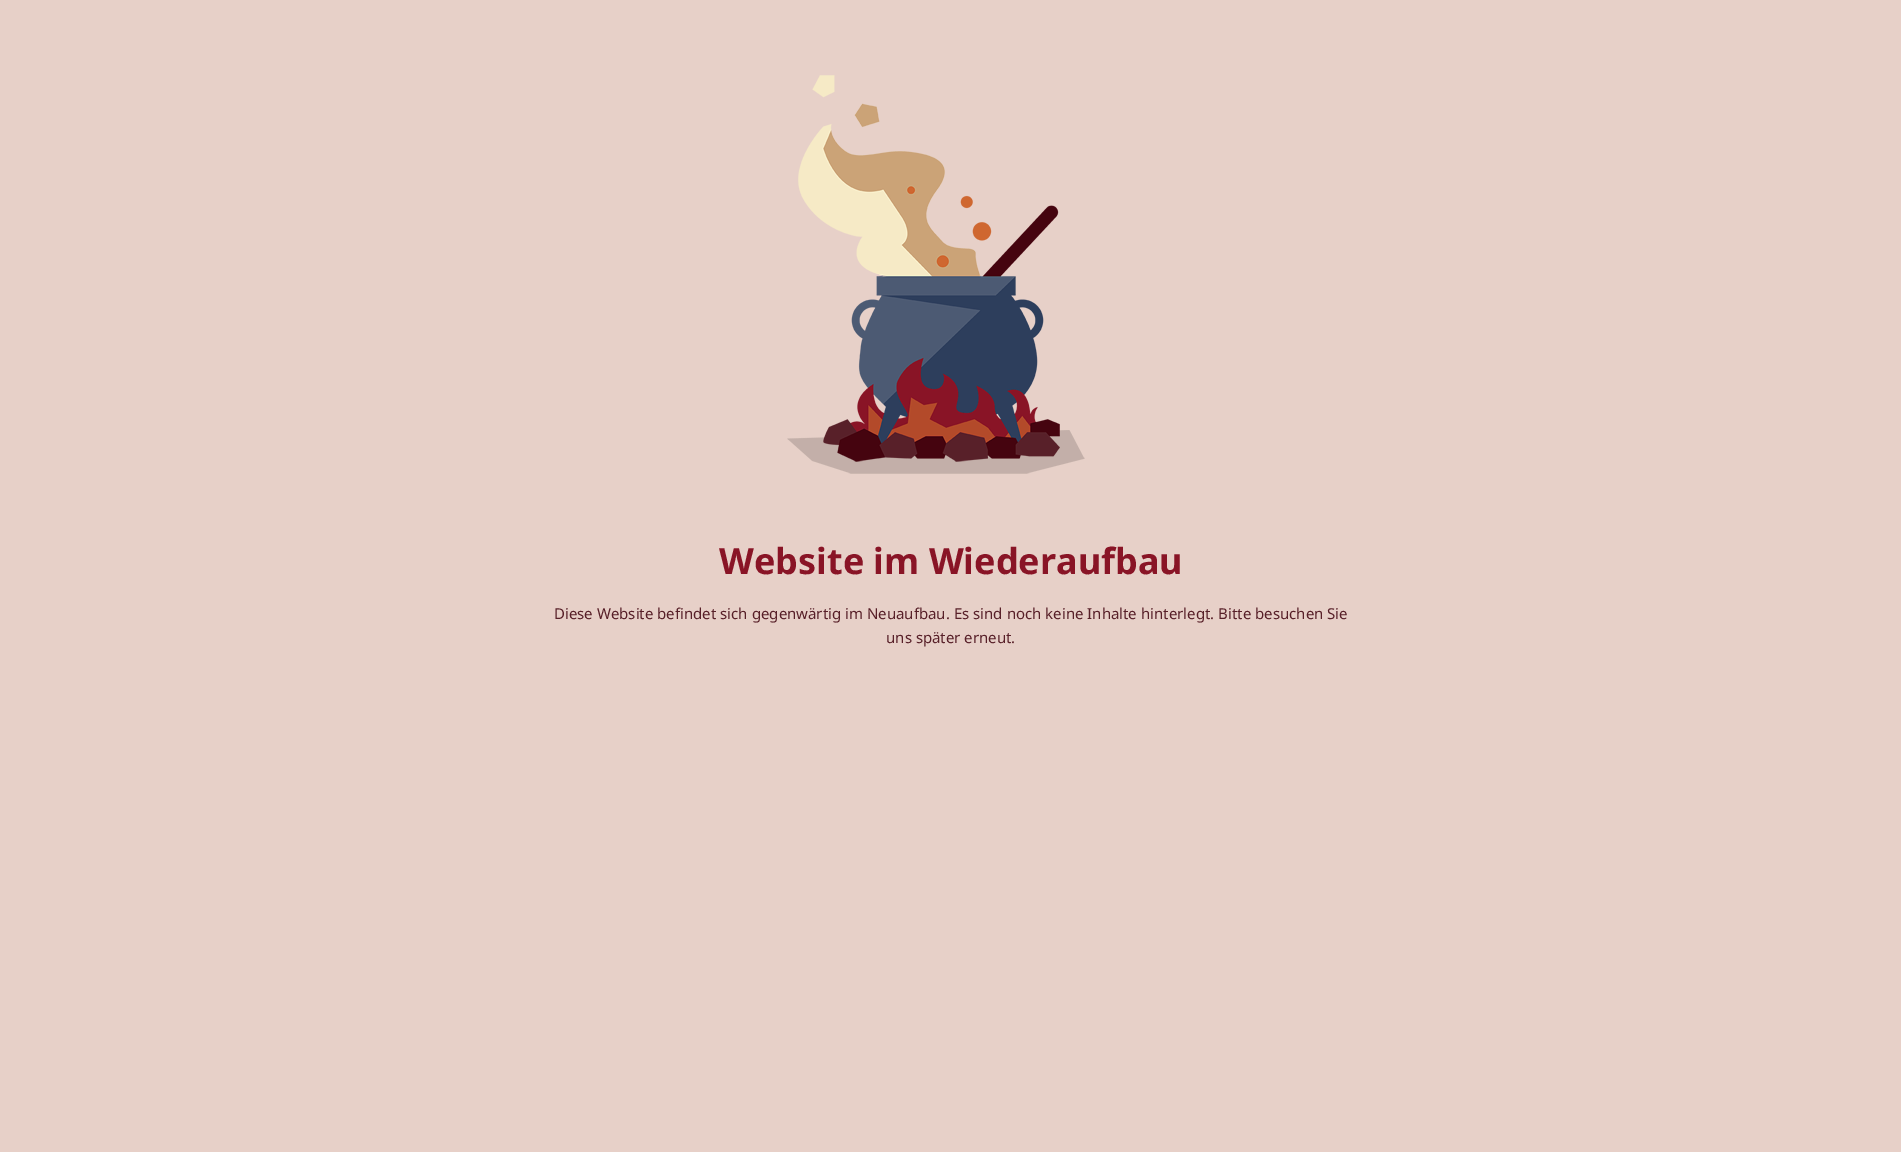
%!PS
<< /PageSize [1901 1152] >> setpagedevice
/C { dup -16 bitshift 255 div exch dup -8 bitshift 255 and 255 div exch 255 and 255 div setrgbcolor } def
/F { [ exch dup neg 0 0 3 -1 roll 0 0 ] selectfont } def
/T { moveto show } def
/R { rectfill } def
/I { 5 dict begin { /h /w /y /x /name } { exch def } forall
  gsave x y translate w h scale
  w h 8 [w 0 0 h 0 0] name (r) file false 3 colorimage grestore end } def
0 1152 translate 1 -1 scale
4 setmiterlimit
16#E7D0C8 C
0 0 1901 1152 R
(1.rgb) 787 75 298 399 I
/NotoSans-Bold 36 F
16#891426 C
(Website im Wiederaufbau) 719 574 T
/NotoSans-Regular 15 F
16#582029 C
(Diese Website befindet sich gegenwärtig im Neuaufbau. Es sind noch keine Inhalte hinterlegt. Bitte besuchen Sie) 554 619 T
(uns später erneut.) 886 643 T
showpage
